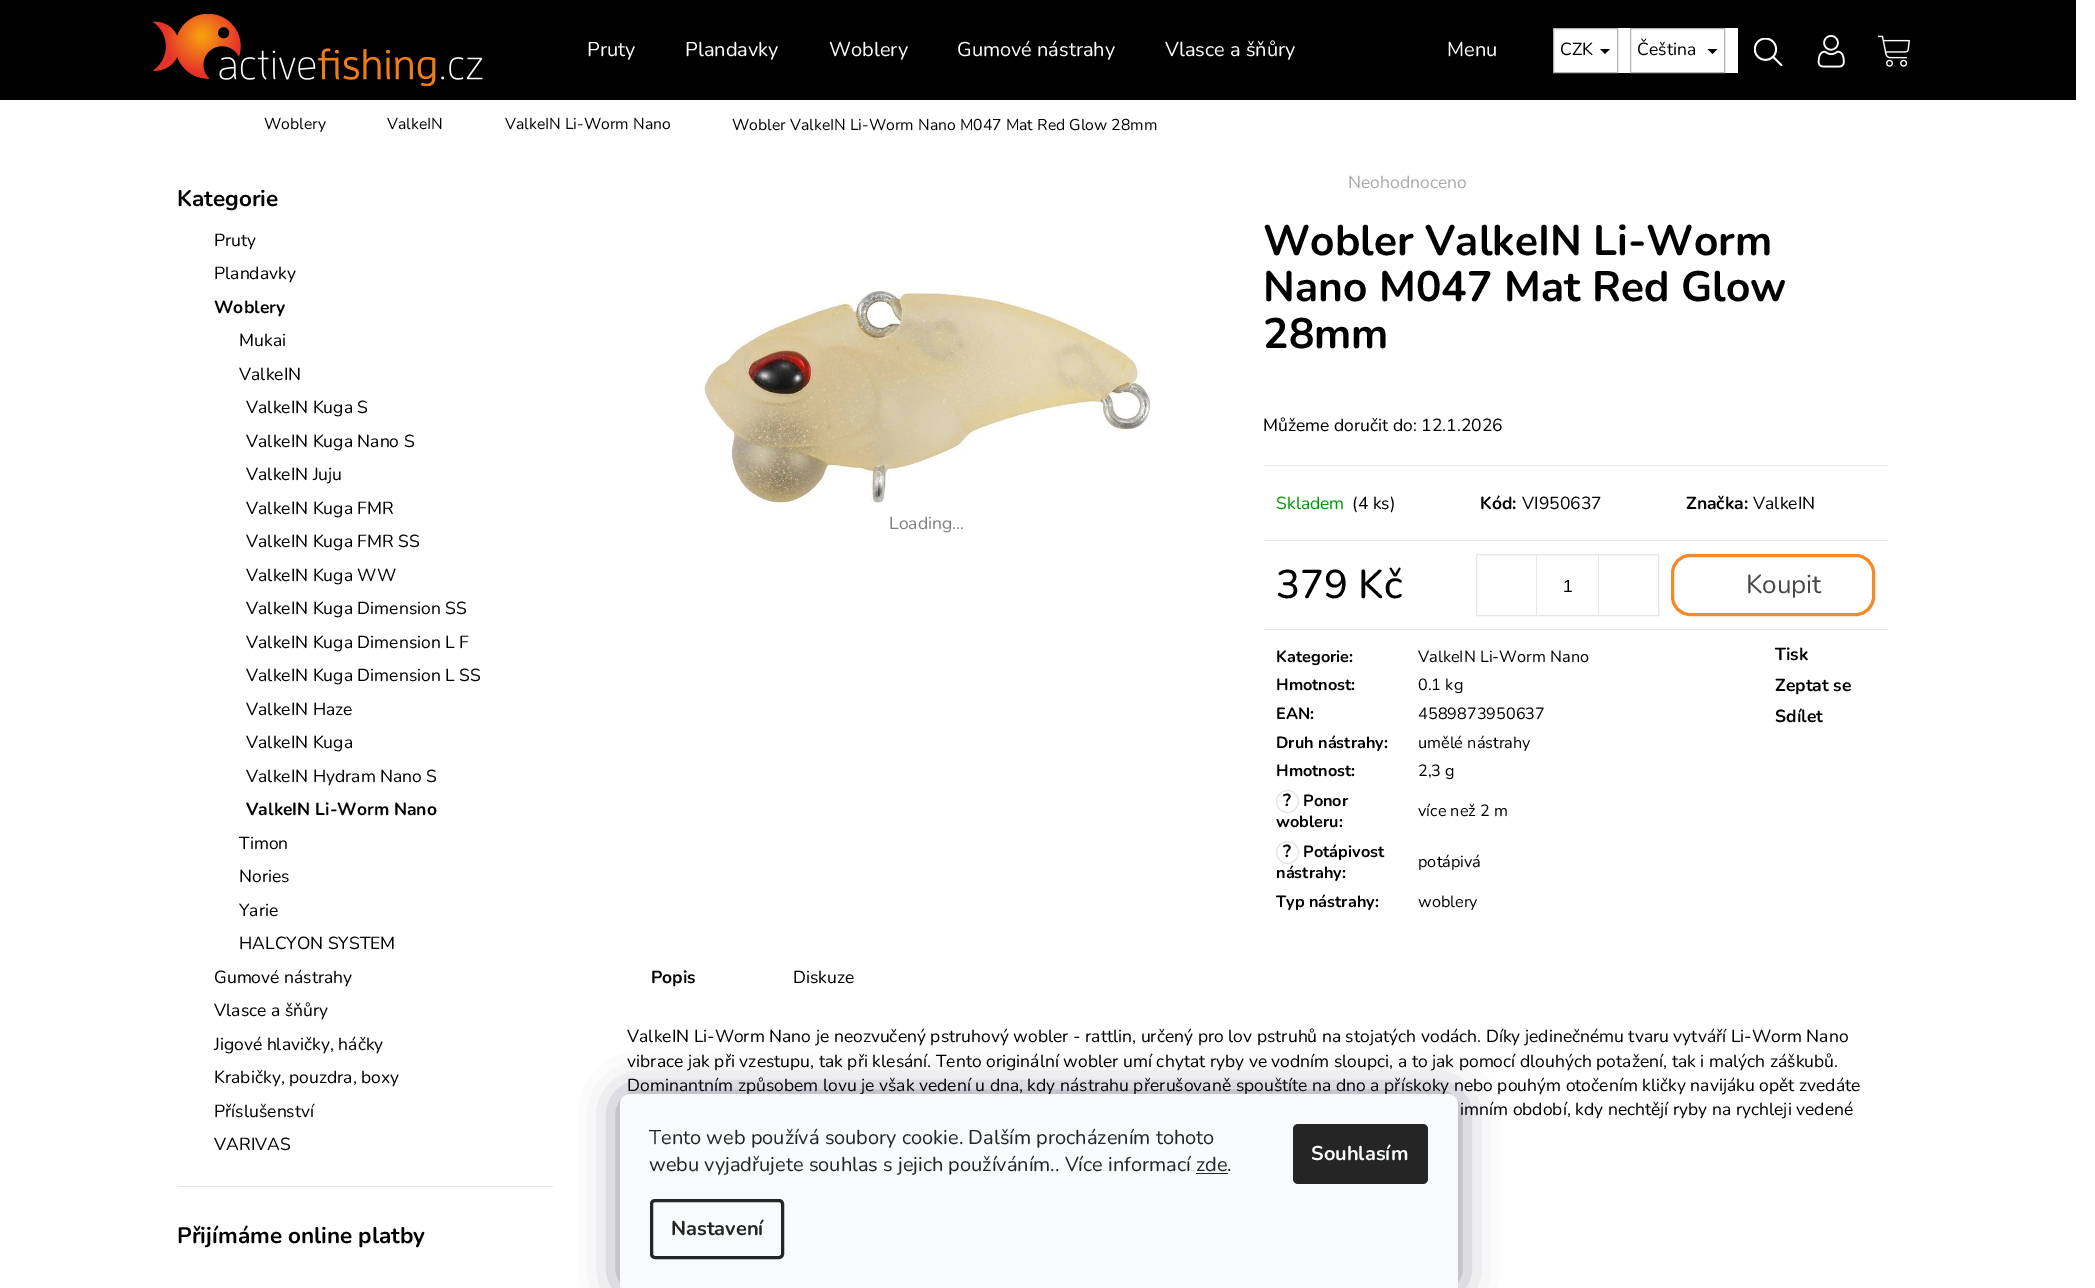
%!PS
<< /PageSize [2095 1288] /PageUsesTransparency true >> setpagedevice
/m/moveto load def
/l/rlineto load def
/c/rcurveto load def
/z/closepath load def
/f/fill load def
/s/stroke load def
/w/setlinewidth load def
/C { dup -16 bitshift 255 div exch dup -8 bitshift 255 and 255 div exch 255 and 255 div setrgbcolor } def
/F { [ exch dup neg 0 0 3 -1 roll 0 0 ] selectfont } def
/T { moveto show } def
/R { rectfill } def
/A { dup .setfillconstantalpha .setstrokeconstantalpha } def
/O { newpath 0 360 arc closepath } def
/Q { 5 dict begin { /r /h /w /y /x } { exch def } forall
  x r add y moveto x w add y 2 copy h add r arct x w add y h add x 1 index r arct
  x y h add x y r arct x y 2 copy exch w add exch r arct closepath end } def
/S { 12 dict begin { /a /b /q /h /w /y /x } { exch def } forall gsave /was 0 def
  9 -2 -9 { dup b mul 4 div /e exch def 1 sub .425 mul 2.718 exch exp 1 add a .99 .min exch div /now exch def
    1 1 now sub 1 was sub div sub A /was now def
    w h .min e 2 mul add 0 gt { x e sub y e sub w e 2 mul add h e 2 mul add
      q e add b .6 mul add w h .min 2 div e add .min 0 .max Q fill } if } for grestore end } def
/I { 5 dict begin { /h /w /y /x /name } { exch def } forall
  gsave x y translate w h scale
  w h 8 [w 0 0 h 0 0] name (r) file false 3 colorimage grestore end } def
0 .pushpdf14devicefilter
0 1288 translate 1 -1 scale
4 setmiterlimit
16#FFFFFF C
0 0 2095 1288 R
16#000000 C
0 0 2076 100 R
(1.rgb) 153 14 330 72 I
/Nunito-Regular 20 F
16#FFFFFF C
(Pruty) 587 56 T
(Plandavky) 685 56 T
(Woblery) 829 56 T
(Gumové nástrahy) 957 56 T
(Vlasce a šňůry) 1165 56 T
(Menu) 1447 56 T
1554 28 184 45 R
16#B3B3B3 C
1553.5 28.5 64 44 rectstroke
/Nunito-Regular 17.5 F
16#000000 C
(CZK) 1560 55 T
1600 49 m 10 0 l -5 5 l z f
16#B3B3B3 C
1630.5 28.5 94 44 rectstroke
16#000000 C
(Čeština) 1637 55 T
1707.5 49 m 10 0 l -5 5 l z f
(2.rgb) 1754 38 29 28 I
(3.rgb) 1817 35 28 33 I
(4.rgb) 1878 35 32 32 I
/Nunito-Regular 15.75 F
(Woblery) 264 129 T
(ValkeIN) 387 129 T
(ValkeIN Li-Worm Nano) 505 129 T
(Wobler ValkeIN Li-Worm Nano M047 Mat Red Glow 28mm) 732 130 T
/Nunito-Bold 22.5 F
(Kategorie) 177 206 T
/Nunito-Regular 17.5 F
(Pruty) 214 246 T
(Plandavky) 214 279 T
/Nunito-Bold 17.5 F
(Woblery) 214 313 T
/Nunito-Regular 17.5 F
(Mukai) 239 346 T
(ValkeIN) 239 380 T
(ValkeIN Kuga S) 246 413 T
(ValkeIN Kuga Nano S) 246 447 T
(ValkeIN Juju) 246 480 T
(ValkeIN Kuga FMR) 246 514 T
(ValkeIN Kuga FMR SS) 246 547 T
(ValkeIN Kuga WW) 246 581 T
(ValkeIN Kuga Dimension SS) 246 614 T
(ValkeIN Kuga Dimension L F) 246 648 T
(ValkeIN Kuga Dimension L SS) 246 681 T
(ValkeIN Haze) 246 715 T
(ValkeIN Kuga) 246 748 T
(ValkeIN Hydram Nano S) 246 782 T
/Nunito-Bold 17.5 F
(ValkeIN Li-Worm Nano) 246 815 T
/Nunito-Regular 17.5 F
(Timon) 239 849 T
(Nories) 239 882 T
(Yarie) 239 916 T
(HALCYON SYSTEM) 239 949 T
(Gumové nástrahy) 214 983 T
(Vlasce a šňůry) 214 1016 T
(Jigové hlavičky, háčky) 214 1050 T
(Krabičky, pouzdra, boxy) 214 1083 T
(Příslušenství) 214 1117 T
(VARIVAS) 214 1150 T
16#E6E6E6 C
178 1186 375 1 R
/Nunito-Bold 22.5 F
16#000000 C
(Přijímáme online platby) 177 1243 T
(5.rgb) 703 288 448 218 I
/Nunito-Regular 17.5 F
16#808080 C
(Loading...) 889 529 T
16#AAAAAA C
(Neohodnoceno) 1348 188 T
/Nunito-Bold 42.5 F
16#000000 C
(Wobler ValkeIN Li-Worm) 1263 255 T
(Nano M047 Mat Red Glow) 1263 301 T
(28mm) 1263 348 T
/Nunito-Regular 17.5 F
(Můžeme doručit do: 12.1.2026) 1263 431 T
16#E7E7E7 C
1264 465 624 1 R
1264 540 624 1 R
16#009901 C
(Skladem) 1276 509 T
16#000000 C
(\(4 ks\)) 1352 509 T
/Nunito-Bold 17.5 F
(Kód:) 1480 509 T
/Nunito-Regular 17.5 F
(VI950637) 1522 509 T
/Nunito-Bold 17.5 F
(Značka:) 1686 509 T
/Nunito-Regular 17.5 F
(ValkeIN) 1753 509 T
16#E7E7E7 C
1264 629 624 1 R
/Nunito-Medium 40 F
16#000000 C
(379 Kč) 1276 598 T
16#E6E6E6 C
1476.5 554.5 182 61 rectstroke
1536 555 1 60 R
/LiberationSans-Regular 17.5 F
16#000000 C
(1) 1563 592 T
16#E6E6E6 C
1598 555 1 60 R
16#F28A27 C
3 w
1672.5 555.5 201 59 17.5 Q s
/Nunito-Regular 26 F
16#484848 C
(Koupit) 1746 593 T
/Nunito-Bold 16.25 F
16#000000 C
(Kategorie:) 1276 662 T
/Nunito-Regular 16.25 F
(ValkeIN Li-Worm Nano) 1418 662 T
/Nunito-Bold 16.25 F
(Hmotnost:) 1276 690 T
/Nunito-Regular 16.25 F
(0.1 kg) 1418 690 T
/Nunito-Bold 16.25 F
(EAN:) 1276 719 T
/Nunito-Regular 16.25 F
(4589873950637) 1418 719 T
/Nunito-Bold 16.25 F
(Druh nástrahy:) 1276 748 T
/Nunito-Regular 16.25 F
(umělé nástrahy) 1418 748 T
/Nunito-Bold 16.25 F
(Hmotnost:) 1276 776 T
/Nunito-Regular 16.25 F
(2,3 g) 1418 776 T
16#E2E2E2 C
1 w
1287.5 801.5 11 O s
/Nunito-Bold 17.5 F
16#000000 C
(?) 1283 806 T
/Nunito-Bold 16.25 F
(Ponor) 1303 806 T
(wobleru:) 1276 827 T
/Nunito-Regular 16.25 F
(více než 2 m) 1418 816 T
16#E2E2E2 C
1287.5 852.5 11 O s
/Nunito-Bold 17.5 F
16#000000 C
(?) 1283 857 T
/Nunito-Bold 16.25 F
(Potápivost) 1303 857 T
(nástrahy:) 1276 878 T
/Nunito-Regular 16.25 F
(potápivá) 1418 867 T
/Nunito-Bold 16.25 F
(Typ nástrahy:) 1276 907 T
/Nunito-Regular 16.25 F
(woblery) 1418 907 T
/Nunito-Bold 17.5 F
(Tisk) 1775 660 T
(Zeptat se) 1775 691 T
(Sdílet) 1775 722 T
(Popis) 651 983 T
/Nunito-Regular 17.5 F
(Diskuze) 793 983 T
(ValkeIN Li-Worm Nano je neozvučený pstruhový wobler - rattlin, určený pro lov pstruhů na stojatých vodách. Díky jedinečnému tvaru vytváří Li-Worm Nano) 627 1042 T
(vibrace jak při vzestupu, tak při klesání. Tento originální wobler umí chytat ryby ve vodním sloupci, a to jak pomocí dlouhých potažení, tak i malých záškubů.) 627 1067 T
(Dominantním způsobem lovu je však vedení u dna, kdy nástrahu přerušovaně spouštíte na dno a přískoky nebo pouhým otočením kličky navijáku opět zvedáte) 627 1091 T
(imním období, kdy nechtějí ryby na rychleji vedené) 1460 1115 T
16#1B1939 C
620 1094 838 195 10 19 .5 S
16#F8FAFB C
630 1094 m 818 0 l 5.5 0 10 4.5 10 10 c 0 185 l -838 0 l 0 -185 l 0 -5.5 4.5 -10 10 -10 c z f
/Nunito-Regular 20 F
16#252525 C
(Tento web používá soubory cookie. Dalším procházením tohoto) 649 1144 T
(webu vyjadřujete souhlas s jejich používáním.. Více informací zde.) 649 1171 T
1196 1173 32 1 R
3 w
651.5 1200.5 131 57 3.5 Q s
/Nunito-Bold 20 F
(Nastavení) 671 1235 T
1293 1124 135 60 5 Q f
16#F8FAFB C
(Souhlasím) 1311 1160 T
.poppdf14devicefilter showpage
